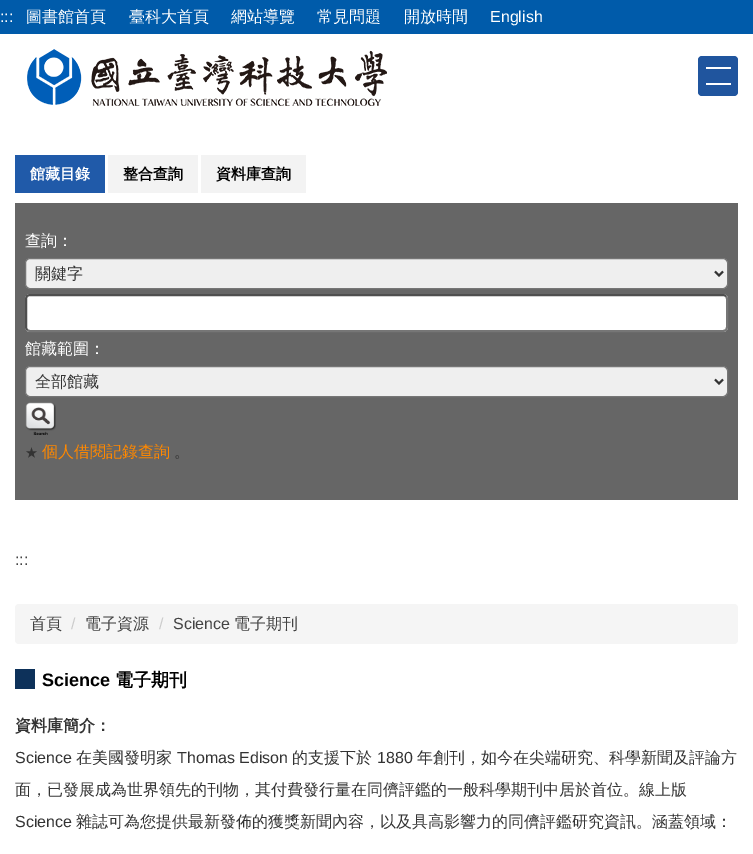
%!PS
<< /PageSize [753 854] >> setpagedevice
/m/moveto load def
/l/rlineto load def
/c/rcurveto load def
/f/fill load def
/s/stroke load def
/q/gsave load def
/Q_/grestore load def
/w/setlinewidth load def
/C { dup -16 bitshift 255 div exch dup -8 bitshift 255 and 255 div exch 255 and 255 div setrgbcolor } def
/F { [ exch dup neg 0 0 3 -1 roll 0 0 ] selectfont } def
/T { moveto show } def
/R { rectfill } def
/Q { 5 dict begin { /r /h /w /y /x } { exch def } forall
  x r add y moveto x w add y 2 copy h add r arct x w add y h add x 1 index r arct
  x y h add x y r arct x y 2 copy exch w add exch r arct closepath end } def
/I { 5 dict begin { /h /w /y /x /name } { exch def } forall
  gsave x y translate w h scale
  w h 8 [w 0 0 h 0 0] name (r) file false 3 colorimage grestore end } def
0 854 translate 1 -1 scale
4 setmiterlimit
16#FFFFFF C
0 0 753 854 R
16#005BAA C
0 0 753 34 R
/LiberationSans-Regular 16 F
16#FFFFFF C
(:::) 0 22 T
/WenQuanYiZenHei-Medium 16 F
(圖書館首頁) 26 22 T
(臺科大首頁) 129 22 T
(網站導覽) 231 22 T
(常見問題) 317 22 T
(開放時間) 404 22 T
/LiberationSans-Regular 16 F
(English) 490 22 T
(1.rgb) 27 49 360 57 I
16#20559E C
698 56 40 40 4 Q f
16#FFFFFF C
706 67 25 2 R
706 83 25 2 R
16#205AA9 C
15 155 90 38 R
/WenQuanYiZenHei-Bold 15 F
16#FFFFFF C
(館藏目錄) 30 179 T
16#F3F3F3 C
108 155 90 38 R
16#000000 C
(整合查詢) 123 179 T
16#F3F3F3 C
201 155 105 38 R
16#000000 C
(資料庫查詢) 216 179 T
16#666666 C
15 203 723 297 R
/WenQuanYiZenHei-Medium 16 F
16#FFFFFF C
(查詢：) 25 246 T
16#EFEFEF C
25.5 258.5 702 30 4.5 Q q f Q_
16#767676 C
s
16#333333 C
2 w
715 271.5 m 4 4 l 4 -4 l s
(關鍵字) 35 279 T
16#FFFFFF C
25 294 703 38 5 Q f
16#767676 C
726 296 m .5 1 1 2 1 3 c 0 28 l 0 1 -.5 2 -1 3 c -1 .5 -2 1 -3 1 c -693 0 l -1 0 -2 -.5 -3 -1 c s
16#4F4F4F C
27 330 m -.5 -1 -1 -2 -1 -3 c 0 -28 l 0 -1 .5 -2 1 -3 c 1 -.5 2 -1 3 -1 c 693 0 l 1 0 2 .5 3 1 c s
16#FFFFFF C
(館藏範圍：) 25 354 T
16#EFEFEF C
25.5 366.5 702 30 4.5 Q q f Q_
16#767676 C
1 w
s
16#333333 C
2 w
715 379.5 m 4 4 l 4 -4 l s
(全部館藏) 35 387 T
(2.rgb) 25 402 31 33 I
/WenQuanYiZenHei-Medium 13 F
(★) 25 457 T
/WenQuanYiZenHei-Medium 16 F
16#FF8800 C
(個人借閱記錄查詢) 42 457 T
16#333333 C
(。) 174 457 T
/LiberationSans-Regular 16 F
16#434343 C
(:::) 15 565 T
16#F5F5F5 C
15 604 723 40 4 Q f
/WenQuanYiZenHei-Medium 16 F
16#434343 C
(首頁) 30 629 T
/LiberationSans-Regular 16 F
16#CCCCCC C
(/) 71 629 T
/WenQuanYiZenHei-Medium 16 F
16#434343 C
(電子資源) 85 629 T
/LiberationSans-Regular 16 F
16#CCCCCC C
(/) 159 629 T
16#434343 C
(Science) 173 629 T
/WenQuanYiZenHei-Medium 16 F
(電子期刊) 234 629 T
16#0D315A C
15 669 20 20 R
/LiberationSans-Bold 18 F
16#000000 C
(Science) 42 686 T
/WenQuanYiZenHei-Bold 18 F
(電子期刊) 115 686 T
/WenQuanYiZenHei-Bold 16 F
16#333333 C
(資料庫簡介：) 15 731 T
/LiberationSans-Regular 16 F
(Science) 15 763 T
/WenQuanYiZenHei-Medium 16 F
(在美國發明家) 76 763 T
/LiberationSans-Regular 16 F
(Thomas Edison) 177 763 T
/WenQuanYiZenHei-Medium 16 F
(的支援下於) 292 763 T
/LiberationSans-Regular 16 F
(1880) 377 763 T
/WenQuanYiZenHei-Medium 16 F
(年創刊，如今在尖端研究、科學新聞及評論方) 417 763 T
(面，已發展成為世界領先的刊物，其付費發行量在同儕評鑑的一般科學期刊中居於首位。線上版) 15 795 T
/LiberationSans-Regular 16 F
(Science) 15 827 T
/WenQuanYiZenHei-Medium 16 F
(雜誌可為您提供最新發佈的獲獎新聞內容，以及具高影響力的同儕評鑑研究資訊。涵蓋領域：) 76 827 T
showpage
